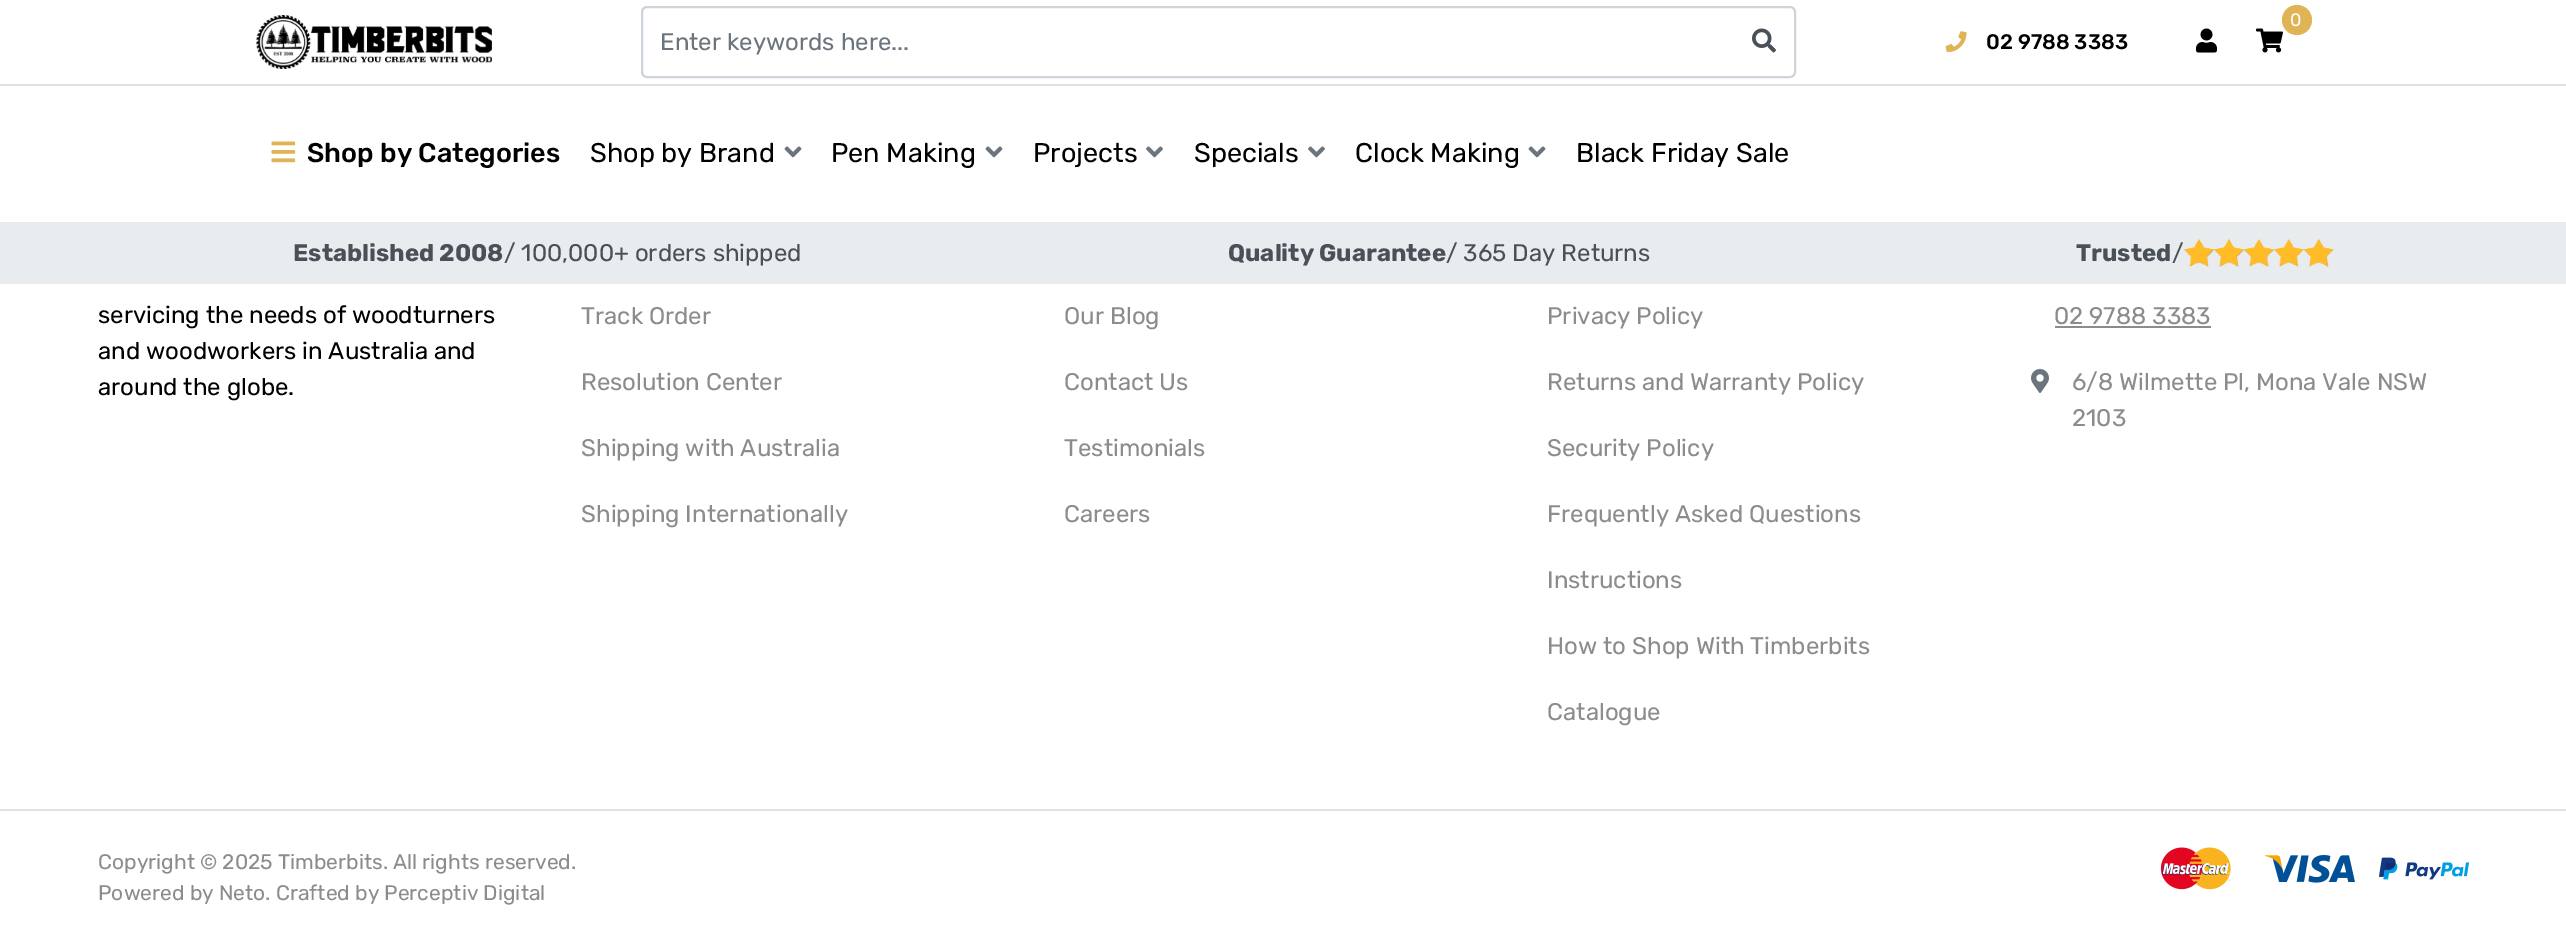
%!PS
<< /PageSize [2566 944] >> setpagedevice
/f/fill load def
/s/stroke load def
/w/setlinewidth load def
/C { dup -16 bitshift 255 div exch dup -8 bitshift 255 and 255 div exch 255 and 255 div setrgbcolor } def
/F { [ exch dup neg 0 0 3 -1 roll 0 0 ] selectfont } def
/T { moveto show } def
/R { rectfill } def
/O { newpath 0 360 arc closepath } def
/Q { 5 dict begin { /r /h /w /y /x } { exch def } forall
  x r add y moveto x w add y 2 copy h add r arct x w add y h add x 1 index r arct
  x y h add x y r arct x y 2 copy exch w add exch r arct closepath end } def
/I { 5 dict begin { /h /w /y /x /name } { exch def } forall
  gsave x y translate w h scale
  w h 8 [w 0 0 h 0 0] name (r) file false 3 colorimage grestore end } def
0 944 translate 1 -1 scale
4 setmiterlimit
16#FFFFFF C
0 0 2566 944 R
16#DEE2E6 C
0 84 2566 2 R
(1.rgb) 256 15 236 54 I
16#CED4DA C
2 w
642 7 1153 70 5 Q s
/Rubik-Regular 24 F
16#6C757D C
(Enter keywords here...) 660 50 T
(2.rgb) 1752 28 24 25 I
(3.rgb) 2256 28 27 25 I
16#E0B354 C
2297 20 15 O f
/Rubik-Regular 18 F
16#FFFFFF C
(0) 2290 26 T
(4.rgb) 1945 31 22 22 I
/Rubik-Medium 21 F
16#000000 C
(02 9788 3383) 1986 49 T
(5.rgb) 2196 28 21 25 I
(6.rgb) 271 141 25 22 I
/Rubik-Medium 27 F
(Shop by Categories) 307 162 T
/Rubik-Regular 27 F
(Shop by Brand) 590 162 T
(7.rgb) 784 146 18 12 I
(Pen Making) 831 162 T
(7.rgb) 985 146 18 12 I
(Projects) 1033 162 T
(8.rgb) 1146 146 17 12 I
(Specials) 1194 162 T
(8.rgb) 1308 146 17 12 I
(Clock Making) 1355 162 T
(7.rgb) 1528 146 18 12 I
(Black Friday Sale) 1576 162 T
16#E9ECEF C
0 222 2566 62 R
/Rubik-Bold 24 F
16#495057 C
(Established 2008) 293 261 T
/Rubik-Regular 24 F
(/ 100,000+ orders shipped) 504 261 T
/Rubik-Bold 24 F
(Quality Guarantee) 1228 261 T
/Rubik-Regular 24 F
(/ 365 Day Returns) 1446 261 T
/Rubik-Bold 24 F
(Trusted) 2076 261 T
/Rubik-Regular 24 F
(/) 2172 261 T
(9.rgb) 2183 238 151 29 I
16#000000 C
(servicing the needs of woodturners) 98 323 T
(and woodworkers in Australia and) 98 359 T
(around the globe.) 98 395 T
16#8C8C8C C
(Track Order) 581 324 T
(Resolution Center) 581 390 T
(Shipping with Australia) 581 456 T
(Shipping Internationally) 581 522 T
(Our Blog) 1064 324 T
(Contact Us) 1064 390 T
(Testimonials) 1064 456 T
(Careers) 1064 522 T
(Privacy Policy) 1547 324 T
(Returns and Warranty Policy) 1547 390 T
(Security Policy) 1547 456 T
(Frequently Asked Questions) 1547 522 T
(Instructions) 1547 588 T
(How to Shop With Timberbits) 1547 654 T
(Catalogue) 1547 720 T
(02 9788 3383) 2054 324 T
2055 326 156 2 R
(10.rgb) 2031 369 18 24 I
(6/8 Wilmette Pl, Mona Vale NSW) 2072 390 T
(2103) 2072 426 T
16#DEE2E6 C
0 809 2566 2 R
/Rubik-Regular 21 F
16#8C8C8C C
(Copyright © 2025 Timberbits. All rights reserved.) 98 869 T
(Powered by Neto. Crafted by Perceptiv Digital) 98 900 T
(11.rgb) 2160 847 71 43 I
(12.rgb) 2265 855 90 28 I
(13.rgb) 2379 857 90 23 I
showpage
